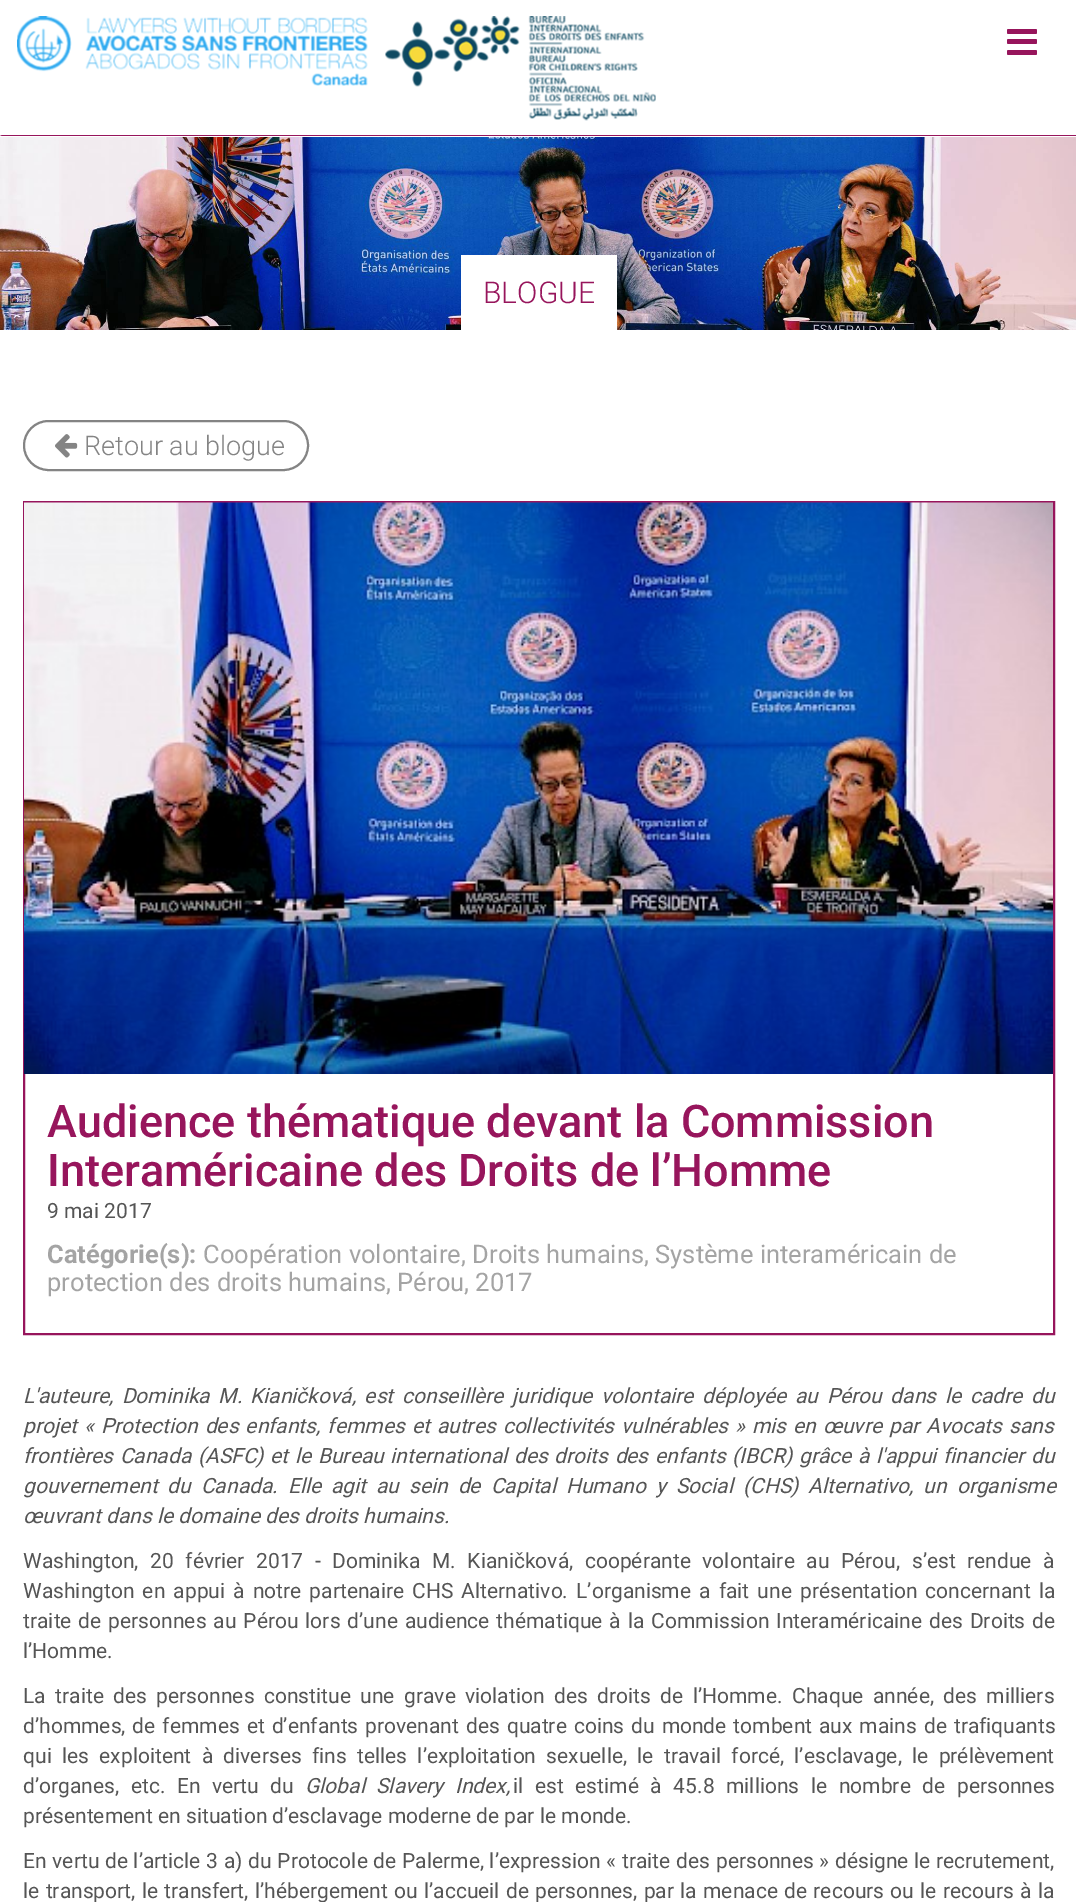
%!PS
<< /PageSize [1076 1902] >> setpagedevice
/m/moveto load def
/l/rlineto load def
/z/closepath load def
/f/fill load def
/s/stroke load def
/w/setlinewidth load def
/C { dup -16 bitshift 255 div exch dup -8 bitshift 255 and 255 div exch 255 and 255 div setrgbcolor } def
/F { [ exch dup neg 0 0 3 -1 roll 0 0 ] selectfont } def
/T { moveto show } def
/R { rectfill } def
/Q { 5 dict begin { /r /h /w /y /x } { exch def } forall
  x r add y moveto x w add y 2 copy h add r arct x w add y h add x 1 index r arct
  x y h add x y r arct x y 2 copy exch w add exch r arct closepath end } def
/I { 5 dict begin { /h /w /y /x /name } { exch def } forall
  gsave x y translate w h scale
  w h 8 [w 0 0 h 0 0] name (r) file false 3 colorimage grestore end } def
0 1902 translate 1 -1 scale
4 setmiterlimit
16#FFFFFF C
0 0 1076 1902 R
16#97155C C
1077 136 m -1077 0 l 2 -1 l 1074 0 l z f
(1.rgb) 17 16 351 70 I
(2.rgb) 385 16 271 105 I
1007 29 30 5 1.5 Q f
1007 39 30 5 1.5 Q f
1007 50 30 5 1.5 Q f
(3.rgb) 0 137 1076 193 I
16#FFFFFF C
461 255 156 75 R
/Roboto-Light 30 F
16#97155C C
(BLOGUE) 483 303 T
16#848484 C
2 w
24 421 284 49 24.5 Q s
(4.rgb) 55 434 23 24 I
/Roboto-Light 27 F
(Retour au blogue) 84 455 T
16#97155C C
24 502 1030 832 rectstroke
(5.rgb) 24 502 1029 572 I
/Roboto-Medium 45 F
(Audience thématique devant la Commission) 47 1137 T
(Interaméricaine des Droits de l’Homme) 47 1186 T
/Roboto-Regular 21 F
16#555555 C
(9 mai 2017) 47 1218 T
/Roboto-Bold 25.5 F
16#A4A4A4 C
(Catégorie\(s\):) 47 1263 T
/Roboto-Regular 25.5 F
(Coopération volontaire, Droits humains, Système interaméricain de) 203 1263 T
(protection des droits humains, Pérou, 2017) 47 1291 T
/Roboto-Italic 21 F
16#555555 C
23 1403 m 3.5 0 32 (L'auteure, Dominika M.) widthshow
250 1403 m 3.5 0 32 (Kianičková, est conseillère juridique volontaire déployée au Pérou dans le cadre du) widthshow
23 1433 m 1.8 0 32 (projet « Protection des enfants, femmes et autres collectivités vulnérables » mis en œuvre par Avocats sans) widthshow
23 1463 m 1.4 0 32 (frontières Canada \(ASFC\) et le Bureau international des droits des enfants \(IBCR\) grâce à l'appui financier du) widthshow
23 1493 m 4.75 0 32 (gouvernement du Canada. Elle agit au sein de Capital Humano y Social \(CHS\) Alternativo, un organisme) widthshow
(œuvrant dans le domaine des droits humains.) 23 1523 T
/Roboto-Regular 21 F
23 1568 m 6.4 0 32 (Washington, 20 février 2017 - Dominika M. Kianičková, coopérante volontaire au Pérou, s’est rendue à) widthshow
23 1598 m 2.9 0 32 (Washington en appui à notre partenaire CHS Alternativo. L’organisme a fait une présentation concernant la) widthshow
23 1628 m 1.75 0 32 (traite de personnes au Pérou lors d’une audience thématique à la Commission Interaméricaine des Droits de) widthshow
(l’Homme.) 23 1658 T
23 1703 m 4.25 0 32 (La traite des personnes constitue une grave violation des droits de l’Homme. Chaque année, des milliers) widthshow
23 1733 m 1.75 0 32 (d’hommes, de femmes et d’enfants provenant des quatre coins du monde tombent aux mains de trafiquants) widthshow
23 1763 m 5.1 0 32 (qui les exploitent à diverses fins telles l’exploitation sexuelle, le travail forcé, l’esclavage, le prélèvement) widthshow
23 1793 m 6.4 0 32 (d’organes, etc. En vertu du) widthshow
/Roboto-Italic 21 F
(Global) 305 1793 T
(Slavery) 376 1793 T
(Index,) 455 1793 T
/Roboto-Regular 21 F
513 1793 m 6.4 0 32 (il est estimé à 45.8 millions le nombre de personnes) widthshow
(présentement en situation d’esclavage moderne de par le monde.) 23 1823 T
23 1868 m .5 0 32 (En vertu de l’article 3 a\) du Protocole de Palerme, l’expression « traite des personnes » désigne le recrutement,) widthshow
23 1898 m 1.1 0 32 (le transport, le transfert, l’hébergement ou l’accueil de personnes, par la menace de recours ou le recours à la) widthshow
showpage
